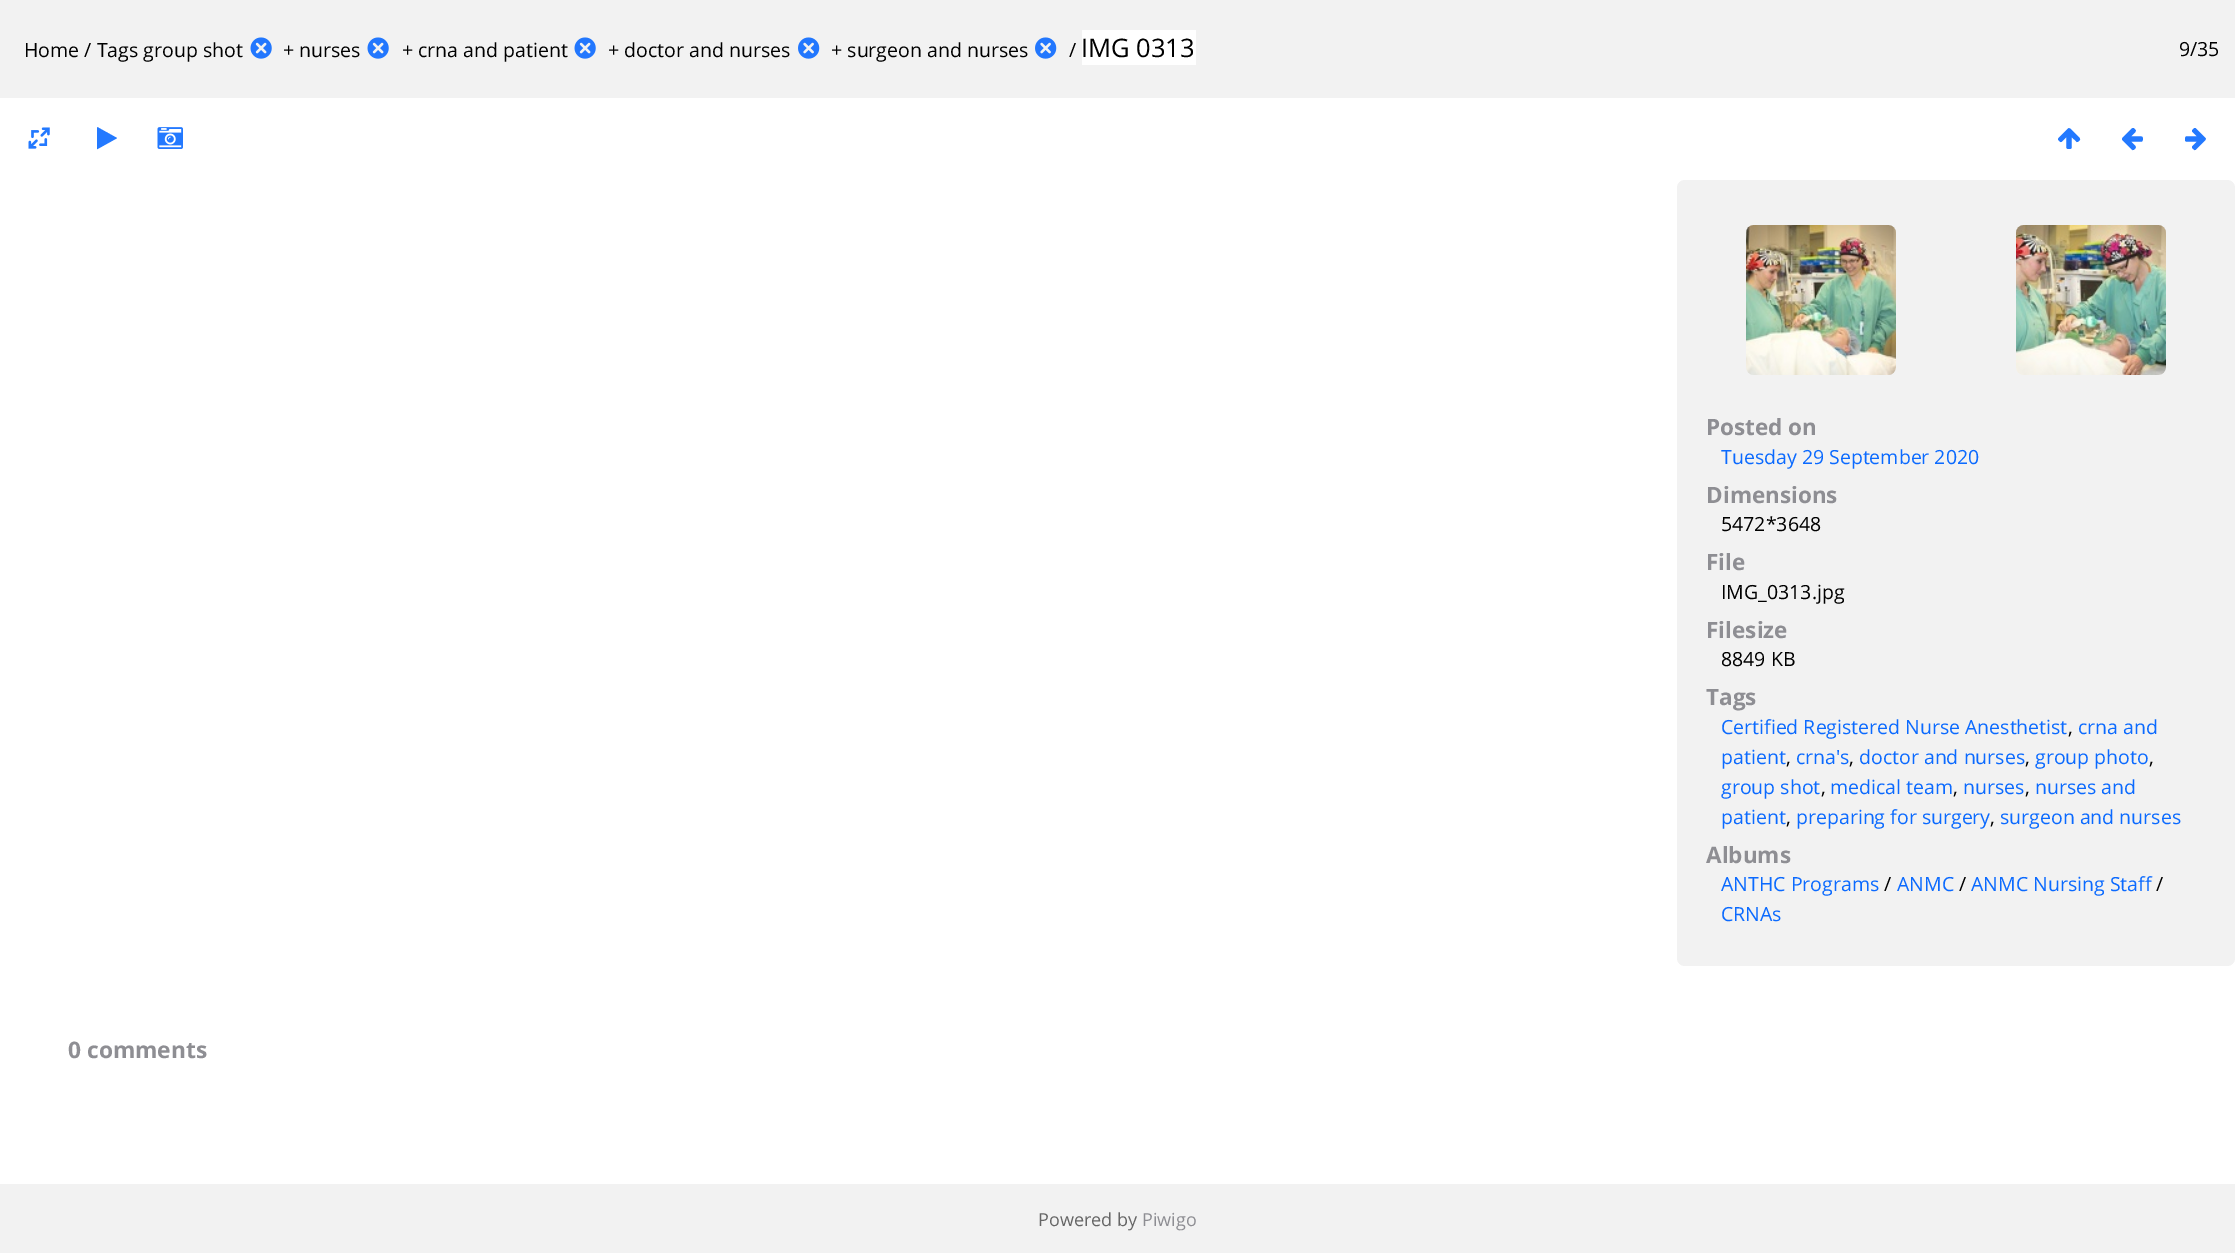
%!PS
<< /PageSize [2235 1253] >> setpagedevice
/f/fill load def
/C { dup -16 bitshift 255 div exch dup -8 bitshift 255 and 255 div exch 255 and 255 div setrgbcolor } def
/F { [ exch dup neg 0 0 3 -1 roll 0 0 ] selectfont } def
/T { moveto show } def
/R { rectfill } def
/Q { 5 dict begin { /r /h /w /y /x } { exch def } forall
  x r add y moveto x w add y 2 copy h add r arct x w add y h add x 1 index r arct
  x y h add x y r arct x y 2 copy exch w add exch r arct closepath end } def
/I { 5 dict begin { /h /w /y /x /name } { exch def } forall
  gsave x y translate w h scale
  w h 8 [w 0 0 h 0 0] name (r) file false 3 colorimage grestore end } def
0 1253 translate 1 -1 scale
4 setmiterlimit
16#FFFFFF C
0 0 2235 1253 R
16#F2F2F2 C
0 0 2235 98 R
/OpenSans-Regular 19.5 F
16#000000 C
(Home / Tags group shot) 24 57 T
(1.rgb) 250 37 22 22 I
(+ nurses) 283 57 T
(1.rgb) 367 37 22 22 I
(+ crna and patient) 402 57 T
(1.rgb) 574 37 22 22 I
(+ doctor and nurses) 608 57 T
(2.rgb) 798 37 22 22 I
(+ surgeon and nurses) 831 57 T
(2.rgb) 1035 37 22 22 I
(/) 1069 57 T
16#FFFFFF C
1082 30 114 35 R
/OpenSans-Regular 25.5 F
16#000000 C
(IMG 0313) 1081 57 T
/OpenSans-Regular 19.5 F
(9/35) 2179 56 T
(3.rgb) 28 127 22 22 I
/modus-Regular 25.5 F
16#2379FF C
(▶) 97 147 T
(4.rgb) 157 127 26 22 I
(↑) 2058 147 T
(←) 2122 147 T
(→) 2185 147 T
16#F2F2F2 C
1677 180 558 786 8 Q f
(5.rgb) 1746 225 150 150 I
(6.rgb) 2016 225 150 150 I
/OpenSans-Bold 22.5 F
16#8E8E93 C
(Posted on) 1706 435 T
/OpenSans-Regular 19.5 F
16#0B6AFF C
(Tuesday 29 September 2020) 1721 464 T
/OpenSans-Bold 22.5 F
16#8E8E93 C
(Dimensions) 1706 503 T
/OpenSans-Regular 19.5 F
16#000000 C
(5472*3648) 1721 531 T
/OpenSans-Bold 22.5 F
16#8E8E93 C
(File) 1706 570 T
/OpenSans-Regular 19.5 F
16#000000 C
(IMG_0313.jpg) 1721 599 T
/OpenSans-Bold 22.5 F
16#8E8E93 C
(Filesize) 1706 638 T
/OpenSans-Regular 19.5 F
16#000000 C
(8849 KB) 1721 666 T
/OpenSans-Bold 22.5 F
16#8E8E93 C
(Tags) 1706 705 T
/OpenSans-Regular 19.5 F
16#0B6AFF C
(Certified Registered Nurse Anesthetist) 1721 734 T
16#000000 C
(,) 2068 734 T
16#0B6AFF C
(crna and) 2078 734 T
(patient) 1721 764 T
16#000000 C
(,) 1786 764 T
16#0B6AFF C
(crna's) 1796 764 T
16#000000 C
(,) 1849 764 T
16#0B6AFF C
(doctor and nurses) 1859 764 T
16#000000 C
(,) 2025 764 T
16#0B6AFF C
(group photo) 2035 764 T
16#000000 C
(,) 2149 764 T
16#0B6AFF C
(group shot) 1721 794 T
16#000000 C
(,) 1821 794 T
16#0B6AFF C
(medical team) 1830 794 T
16#000000 C
(,) 1953 794 T
16#0B6AFF C
(nurses) 1963 794 T
16#000000 C
(,) 2025 794 T
16#0B6AFF C
(nurses and) 2035 794 T
(patient) 1721 824 T
16#000000 C
(,) 1786 824 T
16#0B6AFF C
(preparing for surgery) 1796 824 T
16#000000 C
(,) 1990 824 T
16#0B6AFF C
(surgeon and nurses) 2000 824 T
/OpenSans-Bold 22.5 F
16#8E8E93 C
(Albums) 1706 863 T
/OpenSans-Regular 19.5 F
16#0B6AFF C
(ANTHC Programs) 1721 891 T
16#000000 C
(/) 1884 891 T
16#0B6AFF C
(ANMC) 1897 891 T
16#000000 C
(/) 1959 891 T
16#0B6AFF C
(ANMC Nursing Staff) 1971 891 T
16#000000 C
(/) 2156 891 T
16#0B6AFF C
(CRNAs) 1721 921 T
/OpenSans-Bold 22.75 F
16#8E8E93 C
(0 comments) 68 1058 T
16#F2F2F2 C
0 1184 2235 69 R
/OpenSans-Regular 18 F
16#666666 C
(Powered by) 1038 1226 T
16#8E8E93 C
(Piwigo) 1142 1226 T
showpage
